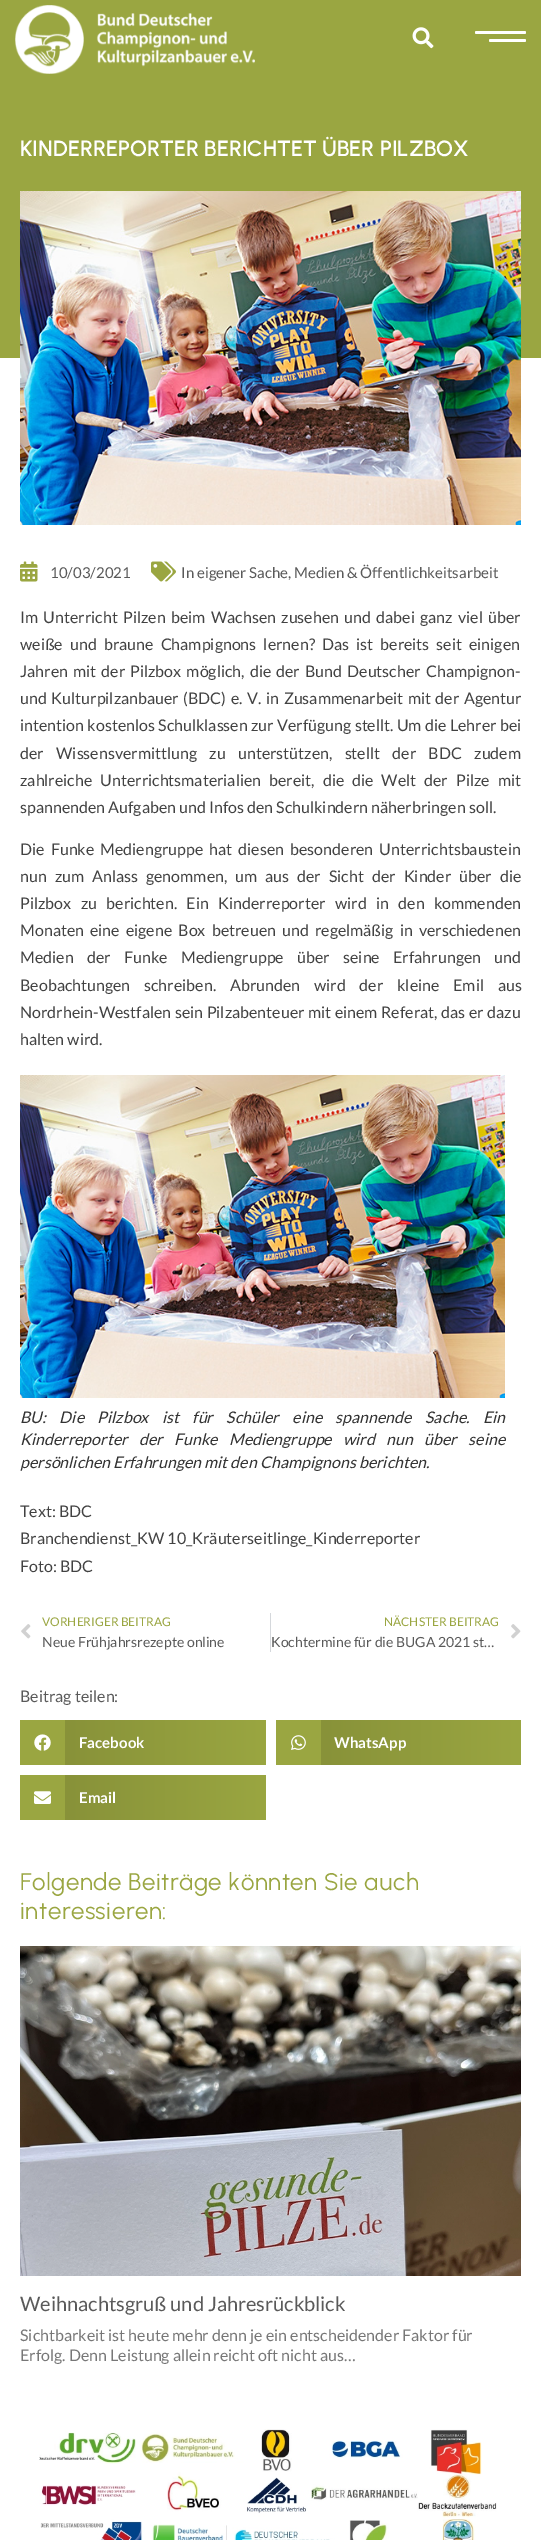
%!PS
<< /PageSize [541 2540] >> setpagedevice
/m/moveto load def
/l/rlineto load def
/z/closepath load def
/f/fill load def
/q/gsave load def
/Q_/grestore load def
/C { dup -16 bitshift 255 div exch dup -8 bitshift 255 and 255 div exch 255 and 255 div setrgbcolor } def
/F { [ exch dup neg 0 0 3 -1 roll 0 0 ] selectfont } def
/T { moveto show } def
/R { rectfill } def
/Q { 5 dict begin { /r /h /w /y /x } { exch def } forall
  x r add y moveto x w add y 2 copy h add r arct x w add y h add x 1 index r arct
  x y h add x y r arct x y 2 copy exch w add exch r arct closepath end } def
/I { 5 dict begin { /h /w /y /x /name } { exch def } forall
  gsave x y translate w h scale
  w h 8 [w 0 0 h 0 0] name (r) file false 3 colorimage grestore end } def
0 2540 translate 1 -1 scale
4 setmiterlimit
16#FFFFFF C
0 0 541 2540 R
16#9AA641 C
0 0 541 358 R
(1.rgb) 15 5 240 69 I
(2.rgb) 412 27 22 22 I
16#FFFFFF C
475 31 51 3 1.5 Q f
489 39 37 3 1.5 Q f
/Urbanist-SemiBold 22 F
(KINDERREPORTER BERICHTET ÜBER PILZBOX) 20 156 T
(3.rgb) 20 191 501 334 I
(4.rgb) 20 561 18 21 I
/Lato-Regular 15 F
16#5A5A5A C
(10/03/2021) 50 578 T
(5.rgb) 151 561 25 21 I
(In eigener Sache, Medien & Öffentlichkeitsarbeit) 181 578 T
/Lato-Regular 16 F
16#424242 C
20 623 m 2.25 0 32 (Im Unterricht Pilzen beim Wachsen zusehen und dabei ganz viel über) widthshow
20 650 m 4 0 32 (weiße und braune Champignons lernen? Das ist bereits seit einigen) widthshow
20 677 m 2 0 32 (Jahren mit der Pilzbox möglich, die der Bund Deutscher Champignon-) widthshow
20 704 m 1.5 0 32 (und Kulturpilzanbauer \(BDC\) e. V. in Zusammenarbeit mit der Agentur) widthshow
20 731 m .25 0 32 (intention kostenlos Schulklassen zur Verfügung stellt. Um die Lehrer bei) widthshow
20 759 m 9.25 0 32 (der Wissensvermittlung zu unterstützen, stellt der BDC zudem) widthshow
20 786 m 4.9 0 32 (zahlreiche Unterrichtsmaterialien bereit, die die Welt der Pilze mit) widthshow
(spannenden Aufgaben und Infos den Schulkindern näherbringen soll.) 20 813 T
20 855 m 3 0 32 (Die Funke Mediengruppe hat diesen besonderen Unterrichtsbaustein) widthshow
20 882 m 4.9 0 32 (nun zum Anlass genommen, um aus der Sicht der Kinder über die) widthshow
20 909 m 6.25 0 32 (Pilzbox zu berichten. Ein Kinderreporter wird in den kommenden) widthshow
20 936 m 3 0 32 (Monaten eine eigene Box betreuen und regelmäßig in verschiedenen) widthshow
20 963 m 10.25 0 32 (Medien der Funke Mediengruppe über seine Erfahrungen und) widthshow
20 991 m 10.75 0 32 (Beobachtungen schreiben. Abrunden wird der kleine Emil aus) widthshow
20 1018 m .5 0 32 (Nordrhein-Westfalen sein Pilzabenteuer mit einem Referat, das er dazu) widthshow
(halten wird.) 20 1045 T
(6.rgb) 20 1075 485 323 I
/Lato-Italic 16 F
16#333333 C
20 1423 m 10.25 0 32 (BU: Die Pilzbox ist für Schüler eine spannende Sache. Ein) widthshow
20 1445 m 8.25 0 32 (Kinderreporter der Funke Mediengruppe wird nun über seine) widthshow
(persönlichen Erfahrungen mit den Champignons berichten.) 20 1468 T
/Lato-Regular 16 F
16#424242 C
(Text: BDC) 20 1517 T
(Branchendienst_KW 10_Kräuterseitlinge_Kinderreporter) 20 1544 T
(Foto: BDC) 20 1572 T
(7.rgb) 21 1624 10 15 I
/Lato-Regular 12 F
16#9AA641 C
(VORHERIGER BEITRAG) 42 1626 T
/Lato-Regular 14 F
16#5A5A5A C
(Neue Frühjahrsrezepte online) 42 1647 T
16#D5D8DC C
270 1613 1 39 R
/Lato-Regular 12 F
16#9AA641 C
(NÄCHSTER BEITRAG) 384 1626 T
/Lato-Regular 14 F
16#5A5A5A C
(Kochtermine für die BUGA 2021 st…) 271 1647 T
(8.rgb) 511 1624 10 15 I
/Lato-Regular 16 F
(Beitrag teilen:) 20 1702 T
16#9AA641 C
20 1720 45 45 R
(9.rgb) 34 1734 17 17 I
q 65 1720 m 201 0 l 0 45 l -201 0 l z clip newpath
<< /ShadingType 2 /ColorSpace /DeviceRGB /Coords [65 1743 266 1743] /Extend [true true] /Function << /FunctionType 2 /Domain [0 1] /C0 [.533 .573 .224] /C1 [.604 .651 .255] /N 1 >> >> shfill Q_
/Lato-Bold 15 F
16#FFFFFF C
(Facebook) 79 1748 T
16#9AA641 C
276 1720 45 45 R
(10.rgb) 291 1735 15 15 I
q 321 1720 m 200 0 l 0 45 l -200 0 l z clip newpath
<< /ShadingType 2 /ColorSpace /DeviceRGB /Coords [321 1743 521 1743] /Extend [true true] /Function << /FunctionType 2 /Domain [0 1] /C0 [.533 .573 .224] /C1 [.604 .651 .255] /N 1 >> >> shfill Q_
16#FFFFFF C
(WhatsApp) 334 1748 T
16#9AA641 C
20 1775 45 45 R
(11.rgb) 34 1791 17 13 I
q 65 1775 m 201 0 l 0 45 l -201 0 l z clip newpath
<< /ShadingType 2 /ColorSpace /DeviceRGB /Coords [65 1798 266 1798] /Extend [true true] /Function << /FunctionType 2 /Domain [0 1] /C0 [.533 .573 .224] /C1 [.604 .651 .255] /N 1 >> >> shfill Q_
16#FFFFFF C
(Email) 79 1803 T
/Urbanist-Regular 24 F
16#9AA641 C
20 1890 m .4 0 (Folgende Beiträge könnten Sie auch) ashow
20 1919 m .4 0 (interessieren:) ashow
(12.rgb) 20 1946 501 330 I
/Lato-Regular 20 F
16#5A5A5A C
(Weihnachtsgruß und Jahresrückblick) 20 2311 T
/Lato-Regular 16 F
16#777777 C
(Sichtbarkeit ist heute mehr denn je ein entscheidender Faktor für) 20 2341 T
(Erfolg. Denn Leistung allein reicht oft nicht aus…) 20 2361 T
(13.rgb) 39 2429 458 111 I
showpage
